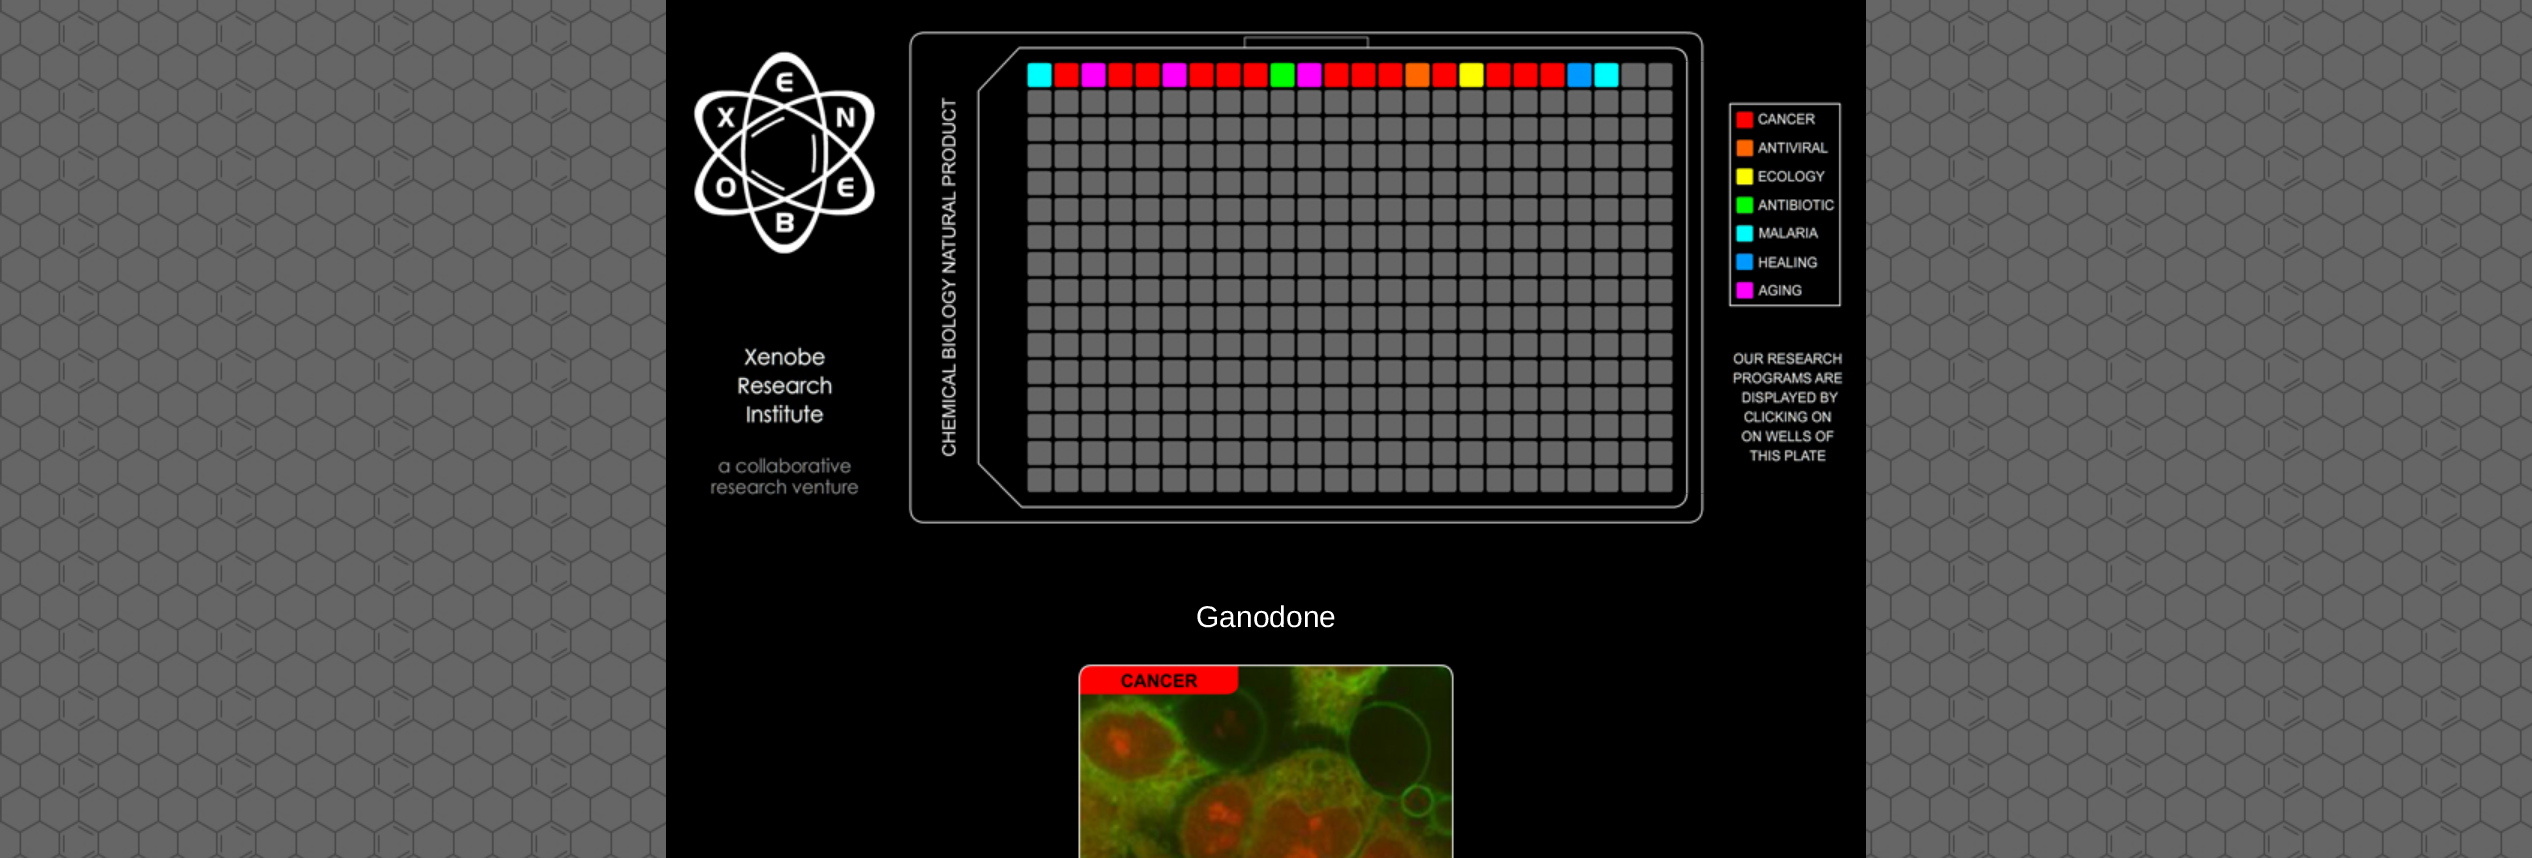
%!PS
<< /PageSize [2532 858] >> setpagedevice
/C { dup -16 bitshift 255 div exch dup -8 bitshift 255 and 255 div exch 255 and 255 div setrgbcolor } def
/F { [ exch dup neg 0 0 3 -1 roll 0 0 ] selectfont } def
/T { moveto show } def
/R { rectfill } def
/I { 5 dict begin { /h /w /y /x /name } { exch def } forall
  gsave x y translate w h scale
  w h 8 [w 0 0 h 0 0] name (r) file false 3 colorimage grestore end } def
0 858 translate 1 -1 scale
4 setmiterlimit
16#FFFFFF C
0 0 2532 858 R
(1.rgb) 0 0 2532 858 I
16#000000 C
666 0 1200 858 R
(2.rgb) 693 31 333 493 I
(3.rgb) 1026 31 679 31 I
(5.rgb) 1026 88 27 28 I
(4.rgb) 1026 61 27 28 I
(6.rgb) 1026 116 27 27 I
(6.rgb) 1026 143 27 27 I
(6.rgb) 1026 170 27 27 I
(6.rgb) 1026 197 27 27 I
(6.rgb) 1026 224 27 27 I
(6.rgb) 1026 251 27 27 I
(6.rgb) 1026 278 27 27 I
(6.rgb) 1026 305 27 27 I
(6.rgb) 1026 332 27 27 I
(6.rgb) 1026 359 27 27 I
(6.rgb) 1026 386 27 27 I
(6.rgb) 1026 413 27 27 I
(6.rgb) 1026 440 27 27 I
(6.rgb) 1026 467 27 27 I
(8.rgb) 1053 88 27 28 I
(7.rgb) 1053 61 27 28 I
(9.rgb) 1053 116 27 27 I
(9.rgb) 1053 143 27 27 I
(9.rgb) 1053 170 27 27 I
(9.rgb) 1053 197 27 27 I
(9.rgb) 1053 224 27 27 I
(9.rgb) 1053 251 27 27 I
(9.rgb) 1053 278 27 27 I
(9.rgb) 1053 305 27 27 I
(9.rgb) 1053 332 27 27 I
(9.rgb) 1053 359 27 27 I
(9.rgb) 1053 386 27 27 I
(9.rgb) 1053 413 27 27 I
(9.rgb) 1053 440 27 27 I
(9.rgb) 1053 467 27 27 I
(8.rgb) 1080 88 27 28 I
(10.rgb) 1080 61 27 28 I
(9.rgb) 1080 116 27 27 I
(9.rgb) 1080 143 27 27 I
(9.rgb) 1080 170 27 27 I
(9.rgb) 1080 197 27 27 I
(9.rgb) 1080 224 27 27 I
(9.rgb) 1080 251 27 27 I
(9.rgb) 1080 278 27 27 I
(9.rgb) 1080 305 27 27 I
(9.rgb) 1080 332 27 27 I
(9.rgb) 1080 359 27 27 I
(9.rgb) 1080 386 27 27 I
(9.rgb) 1080 413 27 27 I
(9.rgb) 1080 440 27 27 I
(9.rgb) 1080 467 27 27 I
(8.rgb) 1107 88 27 28 I
(7.rgb) 1107 61 27 28 I
(9.rgb) 1107 116 27 27 I
(9.rgb) 1107 143 27 27 I
(9.rgb) 1107 170 27 27 I
(9.rgb) 1107 197 27 27 I
(9.rgb) 1107 224 27 27 I
(9.rgb) 1107 251 27 27 I
(9.rgb) 1107 278 27 27 I
(9.rgb) 1107 305 27 27 I
(9.rgb) 1107 332 27 27 I
(9.rgb) 1107 359 27 27 I
(9.rgb) 1107 386 27 27 I
(9.rgb) 1107 413 27 27 I
(9.rgb) 1107 440 27 27 I
(9.rgb) 1107 467 27 27 I
(8.rgb) 1134 88 27 28 I
(7.rgb) 1134 61 27 28 I
(9.rgb) 1134 116 27 27 I
(9.rgb) 1134 143 27 27 I
(9.rgb) 1134 170 27 27 I
(9.rgb) 1134 197 27 27 I
(9.rgb) 1134 224 27 27 I
(9.rgb) 1134 251 27 27 I
(9.rgb) 1134 278 27 27 I
(9.rgb) 1134 305 27 27 I
(9.rgb) 1134 332 27 27 I
(9.rgb) 1134 359 27 27 I
(9.rgb) 1134 386 27 27 I
(9.rgb) 1134 413 27 27 I
(9.rgb) 1134 440 27 27 I
(9.rgb) 1134 467 27 27 I
(8.rgb) 1161 88 27 28 I
(10.rgb) 1161 61 27 28 I
(9.rgb) 1161 116 27 27 I
(9.rgb) 1161 143 27 27 I
(9.rgb) 1161 170 27 27 I
(9.rgb) 1161 197 27 27 I
(9.rgb) 1161 224 27 27 I
(9.rgb) 1161 251 27 27 I
(9.rgb) 1161 278 27 27 I
(9.rgb) 1161 305 27 27 I
(9.rgb) 1161 332 27 27 I
(9.rgb) 1161 359 27 27 I
(9.rgb) 1161 386 27 27 I
(9.rgb) 1161 413 27 27 I
(9.rgb) 1161 440 27 27 I
(9.rgb) 1161 467 27 27 I
(8.rgb) 1188 88 27 28 I
(7.rgb) 1188 61 27 28 I
(9.rgb) 1188 116 27 27 I
(9.rgb) 1188 143 27 27 I
(9.rgb) 1188 170 27 27 I
(9.rgb) 1188 197 27 27 I
(9.rgb) 1188 224 27 27 I
(9.rgb) 1188 251 27 27 I
(9.rgb) 1188 278 27 27 I
(9.rgb) 1188 305 27 27 I
(9.rgb) 1188 332 27 27 I
(9.rgb) 1188 359 27 27 I
(9.rgb) 1188 386 27 27 I
(9.rgb) 1188 413 27 27 I
(9.rgb) 1188 440 27 27 I
(9.rgb) 1188 467 27 27 I
(8.rgb) 1215 88 27 28 I
(7.rgb) 1215 61 27 28 I
(9.rgb) 1215 116 27 27 I
(9.rgb) 1215 143 27 27 I
(9.rgb) 1215 170 27 27 I
(9.rgb) 1215 197 27 27 I
(9.rgb) 1215 224 27 27 I
(9.rgb) 1215 251 27 27 I
(9.rgb) 1215 278 27 27 I
(9.rgb) 1215 305 27 27 I
(9.rgb) 1215 332 27 27 I
(9.rgb) 1215 359 27 27 I
(9.rgb) 1215 386 27 27 I
(9.rgb) 1215 413 27 27 I
(9.rgb) 1215 440 27 27 I
(9.rgb) 1215 467 27 27 I
(8.rgb) 1242 88 27 28 I
(7.rgb) 1242 61 27 28 I
(9.rgb) 1242 116 27 27 I
(9.rgb) 1242 143 27 27 I
(9.rgb) 1242 170 27 27 I
(9.rgb) 1242 197 27 27 I
(9.rgb) 1242 224 27 27 I
(9.rgb) 1242 251 27 27 I
(9.rgb) 1242 278 27 27 I
(9.rgb) 1242 305 27 27 I
(9.rgb) 1242 332 27 27 I
(9.rgb) 1242 359 27 27 I
(9.rgb) 1242 386 27 27 I
(9.rgb) 1242 413 27 27 I
(9.rgb) 1242 440 27 27 I
(9.rgb) 1242 467 27 27 I
(12.rgb) 1269 88 27 28 I
(11.rgb) 1269 61 27 28 I
(13.rgb) 1269 116 27 27 I
(13.rgb) 1269 143 27 27 I
(13.rgb) 1269 170 27 27 I
(13.rgb) 1269 197 27 27 I
(13.rgb) 1269 224 27 27 I
(13.rgb) 1269 251 27 27 I
(13.rgb) 1269 278 27 27 I
(13.rgb) 1269 305 27 27 I
(13.rgb) 1269 332 27 27 I
(13.rgb) 1269 359 27 27 I
(13.rgb) 1269 386 27 27 I
(13.rgb) 1269 413 27 27 I
(13.rgb) 1269 440 27 27 I
(13.rgb) 1269 467 27 27 I
(15.rgb) 1296 88 27 28 I
(14.rgb) 1296 61 27 28 I
(16.rgb) 1296 116 27 27 I
(16.rgb) 1296 143 27 27 I
(16.rgb) 1296 170 27 27 I
(16.rgb) 1296 197 27 27 I
(16.rgb) 1296 224 27 27 I
(16.rgb) 1296 251 27 27 I
(16.rgb) 1296 278 27 27 I
(16.rgb) 1296 305 27 27 I
(16.rgb) 1296 332 27 27 I
(16.rgb) 1296 359 27 27 I
(16.rgb) 1296 386 27 27 I
(16.rgb) 1296 413 27 27 I
(16.rgb) 1296 440 27 27 I
(16.rgb) 1296 467 27 27 I
(8.rgb) 1323 88 27 28 I
(7.rgb) 1323 61 27 28 I
(9.rgb) 1323 116 27 27 I
(9.rgb) 1323 143 27 27 I
(9.rgb) 1323 170 27 27 I
(9.rgb) 1323 197 27 27 I
(9.rgb) 1323 224 27 27 I
(9.rgb) 1323 251 27 27 I
(9.rgb) 1323 278 27 27 I
(9.rgb) 1323 305 27 27 I
(9.rgb) 1323 332 27 27 I
(9.rgb) 1323 359 27 27 I
(9.rgb) 1323 386 27 27 I
(9.rgb) 1323 413 27 27 I
(9.rgb) 1323 440 27 27 I
(9.rgb) 1323 467 27 27 I
(8.rgb) 1350 88 27 28 I
(7.rgb) 1350 61 27 28 I
(9.rgb) 1350 116 27 27 I
(9.rgb) 1350 143 27 27 I
(9.rgb) 1350 170 27 27 I
(9.rgb) 1350 197 27 27 I
(9.rgb) 1350 224 27 27 I
(9.rgb) 1350 251 27 27 I
(9.rgb) 1350 278 27 27 I
(9.rgb) 1350 305 27 27 I
(9.rgb) 1350 332 27 27 I
(9.rgb) 1350 359 27 27 I
(9.rgb) 1350 386 27 27 I
(9.rgb) 1350 413 27 27 I
(9.rgb) 1350 440 27 27 I
(9.rgb) 1350 467 27 27 I
(15.rgb) 1377 88 27 28 I
(17.rgb) 1377 61 27 28 I
(16.rgb) 1377 116 27 27 I
(16.rgb) 1377 143 27 27 I
(16.rgb) 1377 170 27 27 I
(16.rgb) 1377 197 27 27 I
(16.rgb) 1377 224 27 27 I
(16.rgb) 1377 251 27 27 I
(16.rgb) 1377 278 27 27 I
(16.rgb) 1377 305 27 27 I
(16.rgb) 1377 332 27 27 I
(16.rgb) 1377 359 27 27 I
(16.rgb) 1377 386 27 27 I
(16.rgb) 1377 413 27 27 I
(16.rgb) 1377 440 27 27 I
(16.rgb) 1377 467 27 27 I
(15.rgb) 1404 88 27 28 I
(18.rgb) 1404 61 27 28 I
(16.rgb) 1404 116 27 27 I
(16.rgb) 1404 143 27 27 I
(16.rgb) 1404 170 27 27 I
(16.rgb) 1404 197 27 27 I
(16.rgb) 1404 224 27 27 I
(16.rgb) 1404 251 27 27 I
(16.rgb) 1404 278 27 27 I
(16.rgb) 1404 305 27 27 I
(16.rgb) 1404 332 27 27 I
(16.rgb) 1404 359 27 27 I
(16.rgb) 1404 386 27 27 I
(16.rgb) 1404 413 27 27 I
(16.rgb) 1404 440 27 27 I
(16.rgb) 1404 467 27 27 I
(15.rgb) 1431 88 27 28 I
(17.rgb) 1431 61 27 28 I
(16.rgb) 1431 116 27 27 I
(16.rgb) 1431 143 27 27 I
(16.rgb) 1431 170 27 27 I
(16.rgb) 1431 197 27 27 I
(16.rgb) 1431 224 27 27 I
(16.rgb) 1431 251 27 27 I
(16.rgb) 1431 278 27 27 I
(16.rgb) 1431 305 27 27 I
(16.rgb) 1431 332 27 27 I
(16.rgb) 1431 359 27 27 I
(16.rgb) 1431 386 27 27 I
(16.rgb) 1431 413 27 27 I
(16.rgb) 1431 440 27 27 I
(16.rgb) 1431 467 27 27 I
(15.rgb) 1458 88 27 28 I
(19.rgb) 1458 61 27 28 I
(16.rgb) 1458 116 27 27 I
(16.rgb) 1458 143 27 27 I
(16.rgb) 1458 170 27 27 I
(16.rgb) 1458 197 27 27 I
(16.rgb) 1458 224 27 27 I
(16.rgb) 1458 251 27 27 I
(16.rgb) 1458 278 27 27 I
(16.rgb) 1458 305 27 27 I
(16.rgb) 1458 332 27 27 I
(16.rgb) 1458 359 27 27 I
(16.rgb) 1458 386 27 27 I
(16.rgb) 1458 413 27 27 I
(16.rgb) 1458 440 27 27 I
(16.rgb) 1458 467 27 27 I
(8.rgb) 1485 88 27 28 I
(7.rgb) 1485 61 27 28 I
(9.rgb) 1485 116 27 27 I
(9.rgb) 1485 143 27 27 I
(9.rgb) 1485 170 27 27 I
(9.rgb) 1485 197 27 27 I
(9.rgb) 1485 224 27 27 I
(9.rgb) 1485 251 27 27 I
(9.rgb) 1485 278 27 27 I
(9.rgb) 1485 305 27 27 I
(9.rgb) 1485 332 27 27 I
(9.rgb) 1485 359 27 27 I
(9.rgb) 1485 386 27 27 I
(9.rgb) 1485 413 27 27 I
(9.rgb) 1485 440 27 27 I
(9.rgb) 1485 467 27 27 I
(8.rgb) 1512 88 27 28 I
(7.rgb) 1512 61 27 28 I
(9.rgb) 1512 116 27 27 I
(9.rgb) 1512 143 27 27 I
(9.rgb) 1512 170 27 27 I
(9.rgb) 1512 197 27 27 I
(9.rgb) 1512 224 27 27 I
(9.rgb) 1512 251 27 27 I
(9.rgb) 1512 278 27 27 I
(9.rgb) 1512 305 27 27 I
(9.rgb) 1512 332 27 27 I
(9.rgb) 1512 359 27 27 I
(9.rgb) 1512 386 27 27 I
(9.rgb) 1512 413 27 27 I
(9.rgb) 1512 440 27 27 I
(9.rgb) 1512 467 27 27 I
(15.rgb) 1539 88 27 28 I
(17.rgb) 1539 61 27 28 I
(16.rgb) 1539 116 27 27 I
(16.rgb) 1539 143 27 27 I
(16.rgb) 1539 170 27 27 I
(16.rgb) 1539 197 27 27 I
(16.rgb) 1539 224 27 27 I
(16.rgb) 1539 251 27 27 I
(16.rgb) 1539 278 27 27 I
(16.rgb) 1539 305 27 27 I
(16.rgb) 1539 332 27 27 I
(16.rgb) 1539 359 27 27 I
(16.rgb) 1539 386 27 27 I
(16.rgb) 1539 413 27 27 I
(16.rgb) 1539 440 27 27 I
(16.rgb) 1539 467 27 27 I
(15.rgb) 1566 88 27 28 I
(20.rgb) 1566 61 27 28 I
(16.rgb) 1566 116 27 27 I
(16.rgb) 1566 143 27 27 I
(16.rgb) 1566 170 27 27 I
(16.rgb) 1566 197 27 27 I
(16.rgb) 1566 224 27 27 I
(16.rgb) 1566 251 27 27 I
(16.rgb) 1566 278 27 27 I
(16.rgb) 1566 305 27 27 I
(16.rgb) 1566 332 27 27 I
(16.rgb) 1566 359 27 27 I
(16.rgb) 1566 386 27 27 I
(16.rgb) 1566 413 27 27 I
(16.rgb) 1566 440 27 27 I
(16.rgb) 1566 467 27 27 I
(15.rgb) 1593 88 27 28 I
(21.rgb) 1593 61 27 28 I
(16.rgb) 1593 116 27 27 I
(16.rgb) 1593 143 27 27 I
(16.rgb) 1593 170 27 27 I
(16.rgb) 1593 197 27 27 I
(16.rgb) 1593 224 27 27 I
(16.rgb) 1593 251 27 27 I
(16.rgb) 1593 278 27 27 I
(16.rgb) 1593 305 27 27 I
(16.rgb) 1593 332 27 27 I
(16.rgb) 1593 359 27 27 I
(16.rgb) 1593 386 27 27 I
(16.rgb) 1593 413 27 27 I
(16.rgb) 1593 440 27 27 I
(16.rgb) 1593 467 27 27 I
(15.rgb) 1620 61 27 28 I
(16.rgb) 1620 89 27 27 I
(16.rgb) 1620 116 27 27 I
(16.rgb) 1620 143 27 27 I
(16.rgb) 1620 170 27 27 I
(16.rgb) 1620 197 27 27 I
(16.rgb) 1620 224 27 27 I
(16.rgb) 1620 251 27 27 I
(16.rgb) 1620 278 27 27 I
(16.rgb) 1620 305 27 27 I
(16.rgb) 1620 332 27 27 I
(16.rgb) 1620 359 27 27 I
(16.rgb) 1620 386 27 27 I
(16.rgb) 1620 413 27 27 I
(16.rgb) 1620 440 27 27 I
(16.rgb) 1620 467 27 27 I
(15.rgb) 1647 61 27 28 I
(16.rgb) 1647 89 27 27 I
(16.rgb) 1647 116 27 27 I
(16.rgb) 1647 143 27 27 I
(16.rgb) 1647 170 27 27 I
(16.rgb) 1647 197 27 27 I
(16.rgb) 1647 224 27 27 I
(16.rgb) 1647 251 27 27 I
(16.rgb) 1647 278 27 27 I
(16.rgb) 1647 305 27 27 I
(16.rgb) 1647 332 27 27 I
(16.rgb) 1647 359 27 27 I
(16.rgb) 1647 386 27 27 I
(16.rgb) 1647 413 27 27 I
(16.rgb) 1647 440 27 27 I
(16.rgb) 1647 467 27 27 I
(22.rgb) 1685 61 20 433 I
(23.rgb) 1026 493 679 31 I
(24.rgb) 1727 101 117 362 I
/LiberationSans-Regular 30 F
16#FFFFFF C
(Ganodone) 1196 627 T
(25.rgb) 1078 664 376 194 I
showpage
